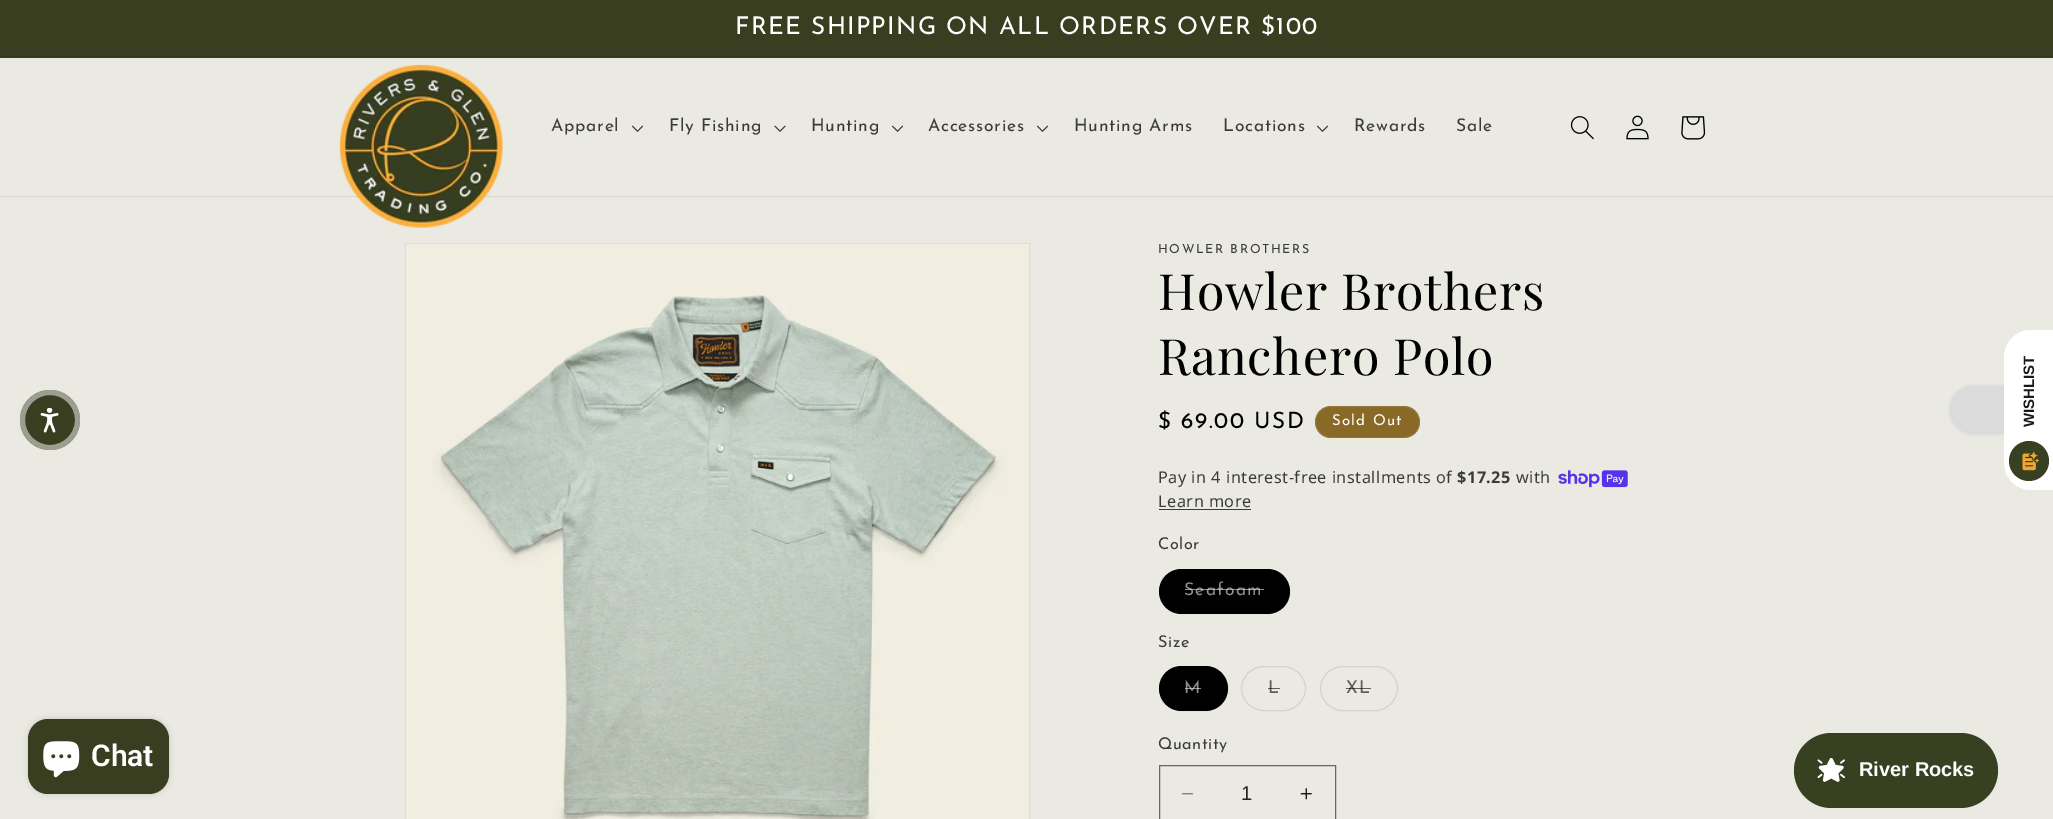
%!PS
<< /PageSize [2053 819] /PageUsesTransparency true >> setpagedevice
/m/moveto load def
/l/rlineto load def
/c/rcurveto load def
/z/closepath load def
/f/fill load def
/s/stroke load def
/q/gsave load def
/Q_/grestore load def
/w/setlinewidth load def
/C { dup -16 bitshift 255 div exch dup -8 bitshift 255 and 255 div exch 255 and 255 div setrgbcolor } def
/F { [ exch dup neg 0 0 3 -1 roll 0 0 ] selectfont } def
/T { moveto show } def
/R { rectfill } def
/A { dup .setfillconstantalpha .setstrokeconstantalpha } def
/O { newpath 0 360 arc closepath } def
/Q { 5 dict begin { /r /h /w /y /x } { exch def } forall
  x r add y moveto x w add y 2 copy h add r arct x w add y h add x 1 index r arct
  x y h add x y r arct x y 2 copy exch w add exch r arct closepath end } def
/S { 12 dict begin { /a /b /q /h /w /y /x } { exch def } forall gsave /was 0 def
  9 -2 -9 { dup b mul 4 div /e exch def 1 sub .425 mul 2.718 exch exp 1 add a .99 .min exch div /now exch def
    1 1 now sub 1 was sub div sub A /was now def
    w h .min e 2 mul add 0 gt { x e sub y e sub w e 2 mul add h e 2 mul add
      q e add b .6 mul add w h .min 2 div e add .min 0 .max Q fill } if } for grestore end } def
/I { 5 dict begin { /h /w /y /x /name } { exch def } forall
  gsave x y translate w h scale
  w h 8 [w 0 0 h 0 0] name (r) file false 3 colorimage grestore end } def
0 .pushpdf14devicefilter
0 819 translate 1 -1 scale
4 setmiterlimit
16#EAEAE2 C
0 0 2053 819 R
16#393E21 C
0 0 2053 58 R
16#34391E C
0 56 2053 1 R
/JosefinSans-Regular 24.4 F
16#FFFFFF C
735 34 m 1.25 0 (FREE SHIPPING ON ALL ORDERS OVER $100) ashow
16#D7D7D0 C
0 196 2053 1 R
(1.rgb) 339 64 164 164 I
/JosefinSans-Regular 17.5 F
16#3B3B39 C
551 131 m .75 0 (Apparel) ashow
(2.rgb) 631 125 13 7 I
669 131 m .75 0 (Fly Fishing) ashow
(3.rgb) 774 125 12 7 I
811 131 m .75 0 (Hunting) ashow
(2.rgb) 891 125 13 7 I
928 131 m .75 0 (Accessories) ashow
(2.rgb) 1036 125 13 7 I
1074 131 m .75 0 (Hunting Arms) ashow
1223 131 m .75 0 (Locations) ashow
(2.rgb) 1316 125 13 7 I
1354 131 m .75 0 (Rewards) ashow
1456 131 m .75 0 (Sale) ashow
(4.rgb) 1570 116 24 24 I
(5.rgb) 1626 115 23 25 I
(6.rgb) 1681 116 25 24 I
16#393E21 C
50 420 30 O f
0.5 A
16#FFFFFF C
5 w
50 420 27.5 O s
1 A
(7.rgb) 40 408 19 25 I
16#DEDED7 C
1 w
405.5 243.5 624 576 rectstroke
(8.rgb) 406 244 623 575 I
/JosefinSans-Regular 12.5 F
16#3B3B39 C
1158 253 m 1.6 0 (HOWLER BROTHERS) ashow
/PlayfairDisplay-Regular 50 F
16#000000 C
1158 310 m .75 0 (Howler Brothers) ashow
1158 375 m .75 0 (Ranchero Polo) ashow
/JosefinSans-Regular 22.5 F
1158 428 m 1.6 0 ($ 69.00 USD) ashow
16#886925 C
1315 406 105 32 16 Q f
0.1 A
16#FFFFFF C
1315.5 406.5 104 31 15.5 Q s
/JosefinSans-Regular 15 F
1 A
1332 425 m 1.25 0 (Sold Out) ashow
/NotoSans-Regular 16.25 F
16#3B3B39 C
1158 483 m .5 0 (Pay in 4 interest-free installments of) ashow
/NotoSans-Bold 16.25 F
1457 483 m .5 0 ($17.25) ashow
/NotoSans-Regular 16.25 F
1516 483 m .5 0 (with) ashow
(9.rgb) 1558 470 70 18 I
1158 507 m .5 0 (Learn more) ashow
1159 509 92 1 R
/JosefinSans-Regular 16.25 F
1158 549 m .5 0 (Color) ashow
16#000000 C
1159 569 131 45 22.5 Q f
0.1 A
1159.5 569.5 130 44 22 Q s
/JosefinSans-Regular 17.5 F
1 A
16#8C8C88 C
1184 595 m 1.25 0 (Seafoam) ashow
0.6 A
16#EAEAE2 C
1185 589 79 1 R
/JosefinSans-Regular 16.25 F
1 A
16#3B3B39 C
1158 647 m .5 0 (Size) ashow
16#000000 C
1159 666 69 45 22.5 Q f
0.1 A
1159.5 666.5 68 44 22 Q s
/JosefinSans-Regular 17.5 F
1 A
16#8C8C88 C
1184 693 m 1.25 0 (M) ashow
0.6 A
16#EAEAE2 C
1185 688 16 1 R
1 A
16#D3D3CB C
1241.5 666.5 64 44 22 Q s
16#5E5E5A C
1268 693 m 1.25 0 (L) ashow
0.6 A
16#000000 C
1268 688 12 1 R
1 A
16#D3D3CB C
1320.5 666.5 77 44 22 Q s
16#5E5E5A C
1346 693 m 1.25 0 (XL) ashow
0.6 A
16#000000 C
1346 688 25 1 R
/JosefinSans-Regular 16.25 F
1 A
16#3B3B39 C
1158 749 m .5 0 (Quantity) ashow
(10.rgb) 1182 793 11 2 I
(11.rgb) 1300 788 12 12 I
16#696966 C
1159.5 765.5 176 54 rectstroke
/LiberationSans-Regular 20 F
16#232322 C
(1) 1241 800 T
16#DADADA C
1949 385 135 50 28 1 1 S
16#FFFFFF C
2004 462 m 0 -104 l 0 -16 12 -28 27 -28 c 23 0 l 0 160 l -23 0 l -15 0 -27 -12 -27 -28 c z f
/LiberationSans-Bold 15 F
16#1A1A1A C
q 2034 427 translate -90 rotate 0 0 m (WISHLIST) show Q_
16#384022 C
2029 461 20 O f
(12.rgb) 2022 451 17 20 I
1794 733 204 75 37.5 Q f
(13.rgb) 1817 758 28 24 I
/LiberationSans-Bold 20 F
16#FFFFFF C
(River Rocks) 1859 776 T
16#000000 C
28 719 141 75 20 3 .15 S
16#393E21 C
28 719 141 75 20 Q f
(14.rgb) 43 741 37 37 I
/Roboto-SemiBold 30 F
16#FFFFFF C
(Chat) 91 766 T
.poppdf14devicefilter showpage
